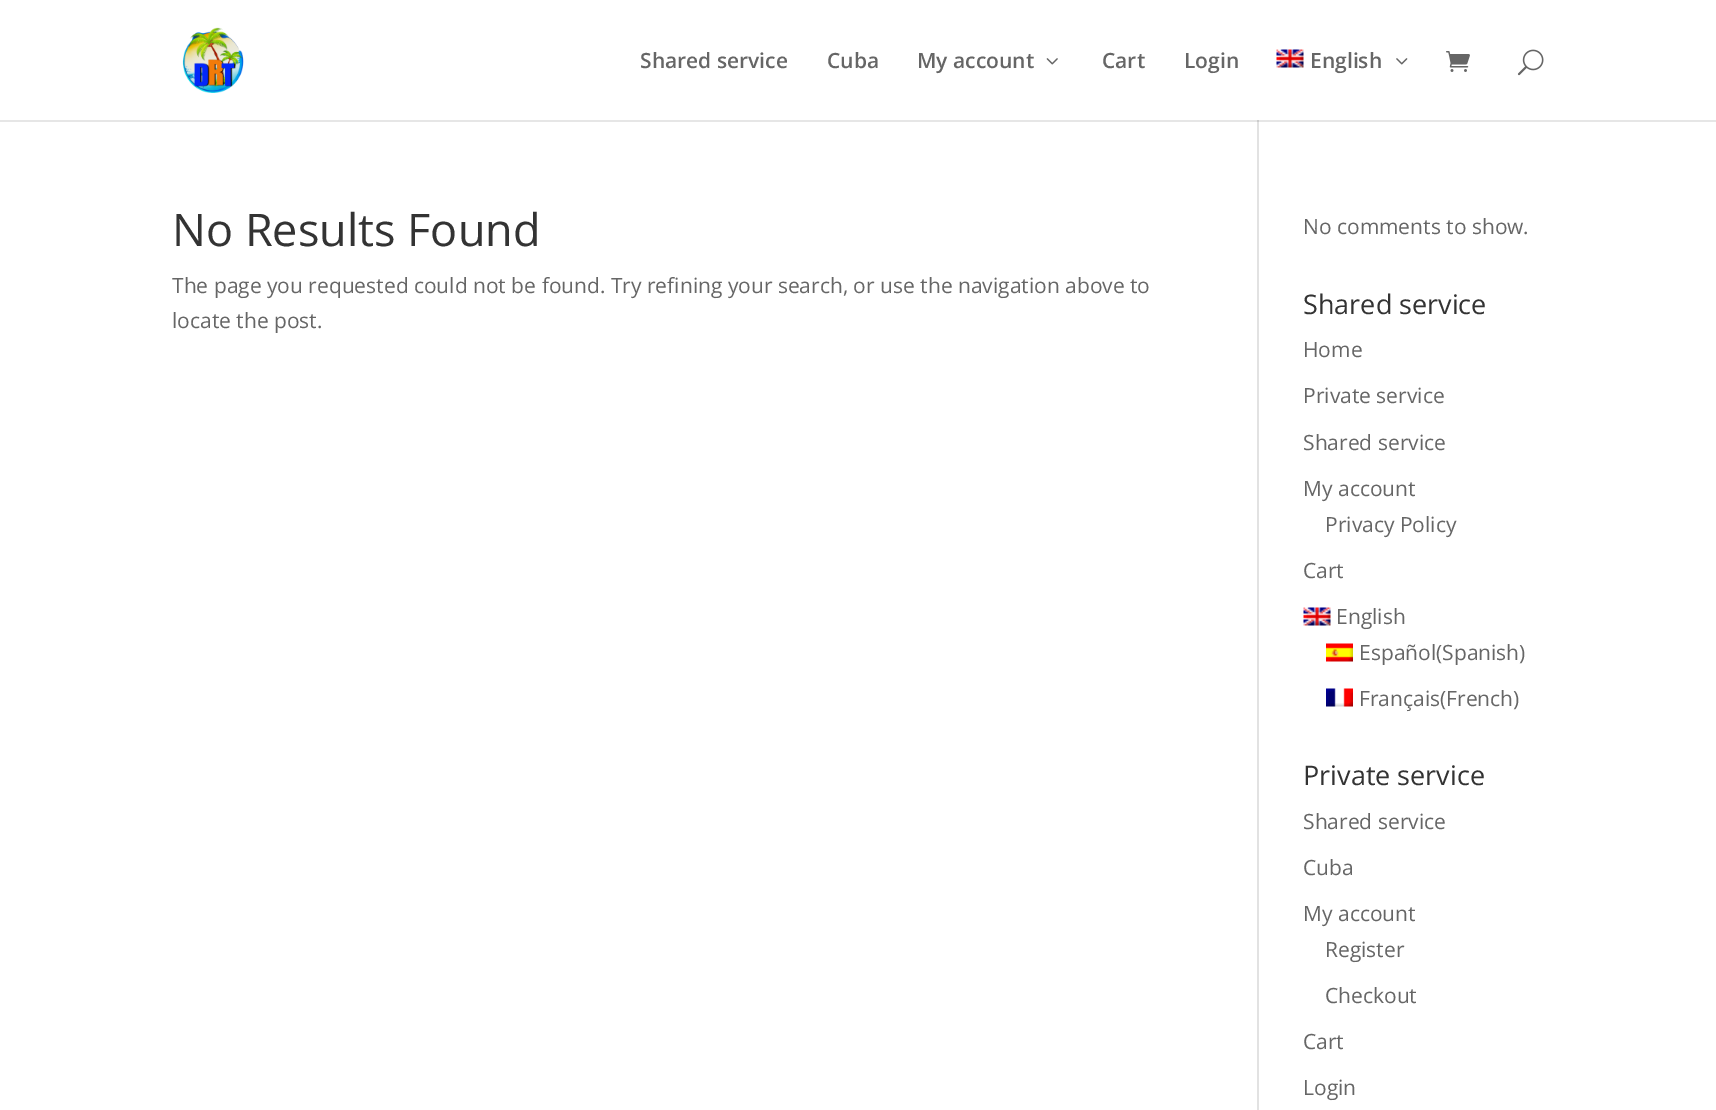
%!PS
<< /PageSize [1716 1110] >> setpagedevice
/C { dup -16 bitshift 255 div exch dup -8 bitshift 255 and 255 div exch 255 and 255 div setrgbcolor } def
/F { [ exch dup neg 0 0 3 -1 roll 0 0 ] selectfont } def
/T { moveto show } def
/R { rectfill } def
/I { 5 dict begin { /h /w /y /x /name } { exch def } forall
  gsave x y translate w h scale
  w h 8 [w 0 0 h 0 0] name (r) file false 3 colorimage grestore end } def
0 1110 translate 1 -1 scale
4 setmiterlimit
16#FFFFFF C
0 0 1716 1110 R
16#E6E6E6 C
0 120 1716 2 R
(1.rgb) 182 27 62 66 I
/OpenSans-SemiBold 21 F
16#666666 C
(Shared service) 640 68 T
(Cuba) 827 68 T
(My account) 917 68 T
(2.rgb) 1046 58 12 7 I
(Cart) 1102 68 T
(Login) 1184 68 T
(3.rgb) 1276 49 28 19 I
(English) 1310 68 T
(4.rgb) 1396 58 12 7 I
(5.rgb) 1446 51 24 21 I
(6.rgb) 1517 49 27 27 I
16#E2E2E2 C
1257 120 2 990 R
16#CBCBCB C
1257 120 2 2 R
/OpenSans-Regular 45 F
16#333333 C
(No Results Found) 172 246 T
/OpenSans-Regular 21 F
16#666666 C
(The page you requested could not be found. Try refining your search, or use the navigation above to) 172 293 T
(locate the post.) 172 328 T
(No comments to show.) 1303 234 T
/OpenSans-Regular 27 F
16#333333 C
(Shared service) 1303 314 T
/OpenSans-Regular 21 F
16#666666 C
(Home) 1303 357 T
(Private service) 1303 403 T
(Shared service) 1303 450 T
(My account) 1303 496 T
(Privacy Policy) 1325 532 T
(Cart) 1303 578 T
(7.rgb) 1303 607 28 19 I
(English) 1336 624 T
(8.rgb) 1326 643 27 19 I
(Español\(Spanish\)) 1359 660 T
(9.rgb) 1326 688 27 19 I
(Français\(French\)) 1359 706 T
/OpenSans-Regular 27 F
16#333333 C
(Private service) 1303 785 T
/OpenSans-Regular 21 F
16#666666 C
(Shared service) 1303 829 T
(Cuba) 1303 875 T
(My account) 1303 921 T
(Register) 1325 957 T
(Checkout) 1325 1003 T
(Cart) 1303 1049 T
(Login) 1303 1095 T
showpage
